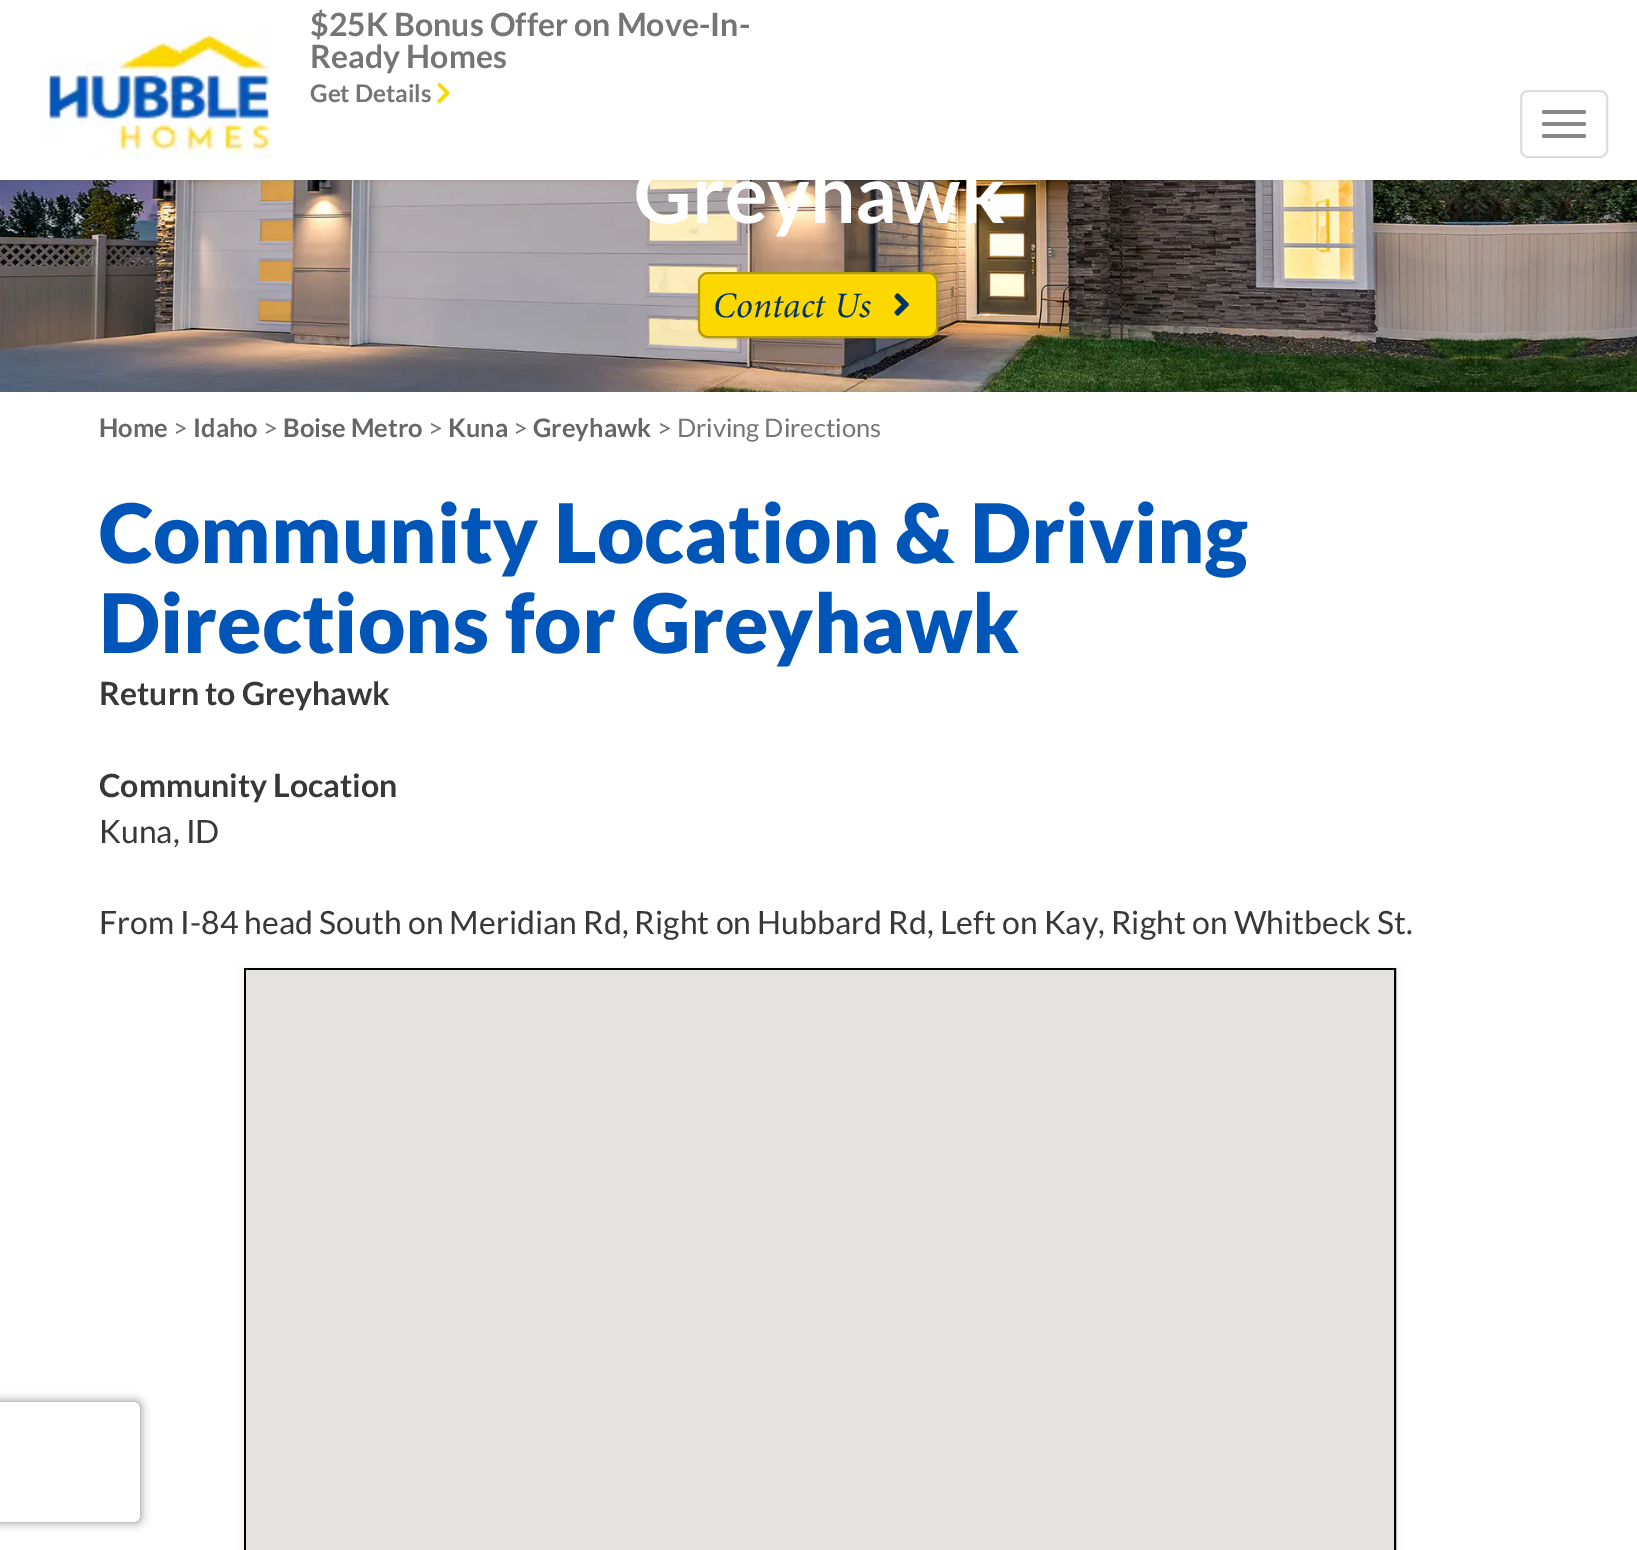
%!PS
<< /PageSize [1637 1550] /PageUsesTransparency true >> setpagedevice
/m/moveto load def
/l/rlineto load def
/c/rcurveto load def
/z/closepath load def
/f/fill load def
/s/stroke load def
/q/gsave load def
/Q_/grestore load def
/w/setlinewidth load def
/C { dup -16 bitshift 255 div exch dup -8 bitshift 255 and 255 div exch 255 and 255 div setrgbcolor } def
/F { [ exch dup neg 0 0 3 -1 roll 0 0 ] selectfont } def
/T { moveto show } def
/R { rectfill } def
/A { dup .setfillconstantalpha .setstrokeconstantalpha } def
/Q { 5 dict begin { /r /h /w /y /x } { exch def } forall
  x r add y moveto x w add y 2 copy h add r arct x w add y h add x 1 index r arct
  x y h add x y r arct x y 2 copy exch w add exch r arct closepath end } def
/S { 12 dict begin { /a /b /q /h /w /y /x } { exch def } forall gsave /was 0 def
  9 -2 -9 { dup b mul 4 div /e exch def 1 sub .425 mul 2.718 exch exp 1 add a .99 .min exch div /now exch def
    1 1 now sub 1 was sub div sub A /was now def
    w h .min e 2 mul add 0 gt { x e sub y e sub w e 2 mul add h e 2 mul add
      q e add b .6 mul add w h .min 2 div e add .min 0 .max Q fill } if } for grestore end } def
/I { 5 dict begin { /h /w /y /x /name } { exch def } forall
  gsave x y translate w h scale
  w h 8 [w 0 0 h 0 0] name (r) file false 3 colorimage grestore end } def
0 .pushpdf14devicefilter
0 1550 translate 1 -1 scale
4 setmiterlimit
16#FFFFFF C
0 0 1637 1550 R
(4.rgb) 0 180 1637 212 I
16#000000 C
0 0 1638 180 0 3 .1 S
16#FFFFFF C
0 0 1637 180 R
/Lato-Bold 32 F
16#757575 C
($25K Bonus Offer on Move-In-) 310 36 T
(Ready Homes) 310 68 T
/Lato-Bold 24.25 F
(Get Details) 310 102 T
(1.rgb) 437 82 13 22 I
(2.rgb) 46 30 226 130 I
16#DDDDDD C
2 w
1521 91 86 66 7 Q s
16#888888 C
1542 110 44 4 2 Q f
1542 122 44 4 2 Q f
1542 134 44 4 2 Q f
/Lato-Bold 80 F
16#FFFFFF C
(Greyhawk) 634 223 T
16#000000 C
698 274 240 66 10 1 .07 S
16#FCD700 C
698 272 240 66 10 Q f
16#FCDD26 C
709 276 m 220 0 l 3 0 5 2 7 4 c -1 -3 -4 -6 -8 -6 c -220 0 l -4 0 -8 4 -8 8 c 0 46 l 0 2 1 3 1 5 c 0 -41 l 0 -7 -1 -16 8 -16 c z f
16#B59A00 C
699 273 238 64 9 Q s
/Minion-Italic 36 F
16#003264 C
(Contact Us) 713 317 T
(3.rgb) 894 293 15 23 I
/Lato-Bold 25.5 F
16#666666 C
(Home) 99 437 T
/Lato-Regular 25.5 F
16#757575 C
(>) 173 437 T
/Lato-Bold 25.5 F
16#666666 C
(Idaho) 193 437 T
/Lato-Regular 25.5 F
16#757575 C
(>) 263 437 T
/Lato-Bold 25.5 F
16#666666 C
(Boise Metro) 283 437 T
/Lato-Regular 25.5 F
16#757575 C
(>) 428 437 T
/Lato-Bold 25.5 F
16#666666 C
(Kuna) 448 437 T
/Lato-Regular 25.5 F
16#757575 C
(>) 513 437 T
/Lato-Bold 25.5 F
16#666666 C
(Greyhawk) 533 437 T
/Lato-Regular 25.5 F
16#757575 C
(> Driving Directions) 657 437 T
/Lato-Black 82 F
16#0055B9 C
(Community Location & Driving) 99 563 T
(Directions for Greyhawk) 99 653 T
/Lato-Bold 32 F
16#383838 C
(Return to Greyhawk) 99 705 T
(Community Location) 99 797 T
/Lato-Regular 32 F
(Kuna, ID) 99 843 T
(From I-84 head South on Meridian Rd, Right on Hubbard Rd, Left on Kay, Right on Whitbeck St.) 99 934 T
16#404040 C
244 972 1152 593 0 5 .1 S
16#000000 C
245 969 1150 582 rectstroke
16#E5E3DF C
246 970 1148 580 R
q
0 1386 m 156 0 l 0 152 l -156 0 l z -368 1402 m 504 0 l 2 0 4 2 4 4 c 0 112 l 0 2 -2 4 -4 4 c -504 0 l -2 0 -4 -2 -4 -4 c 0 -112 l 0 -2 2 -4 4 -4 c z eoclip newpath
16#808080 C
-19 1402 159 120 4 5 1 S
Q_
.poppdf14devicefilter showpage
